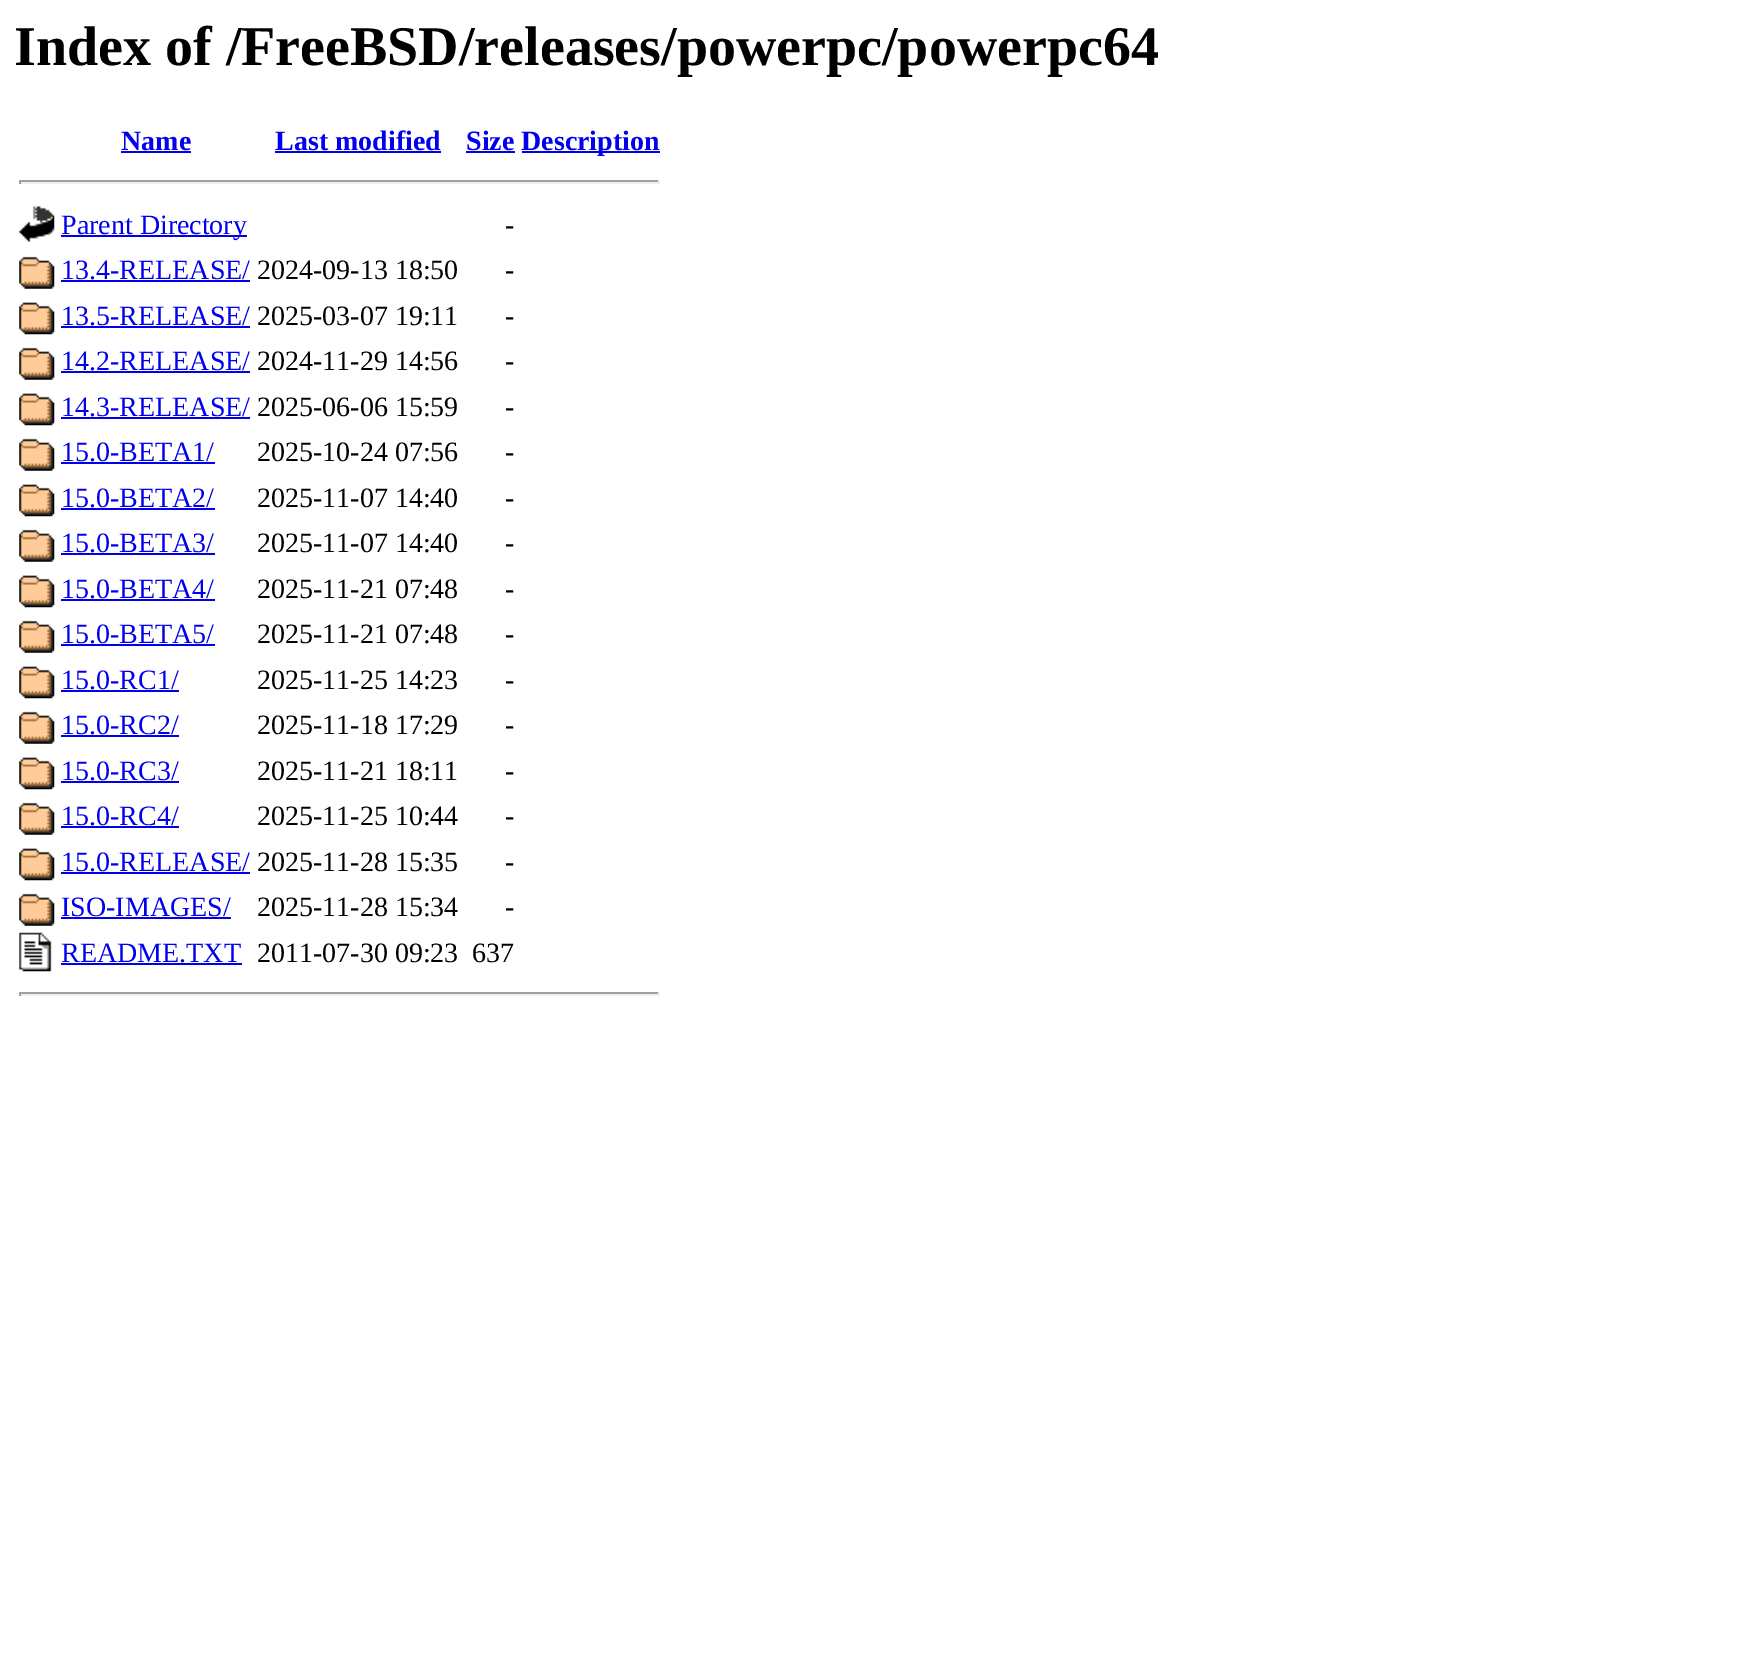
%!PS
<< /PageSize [1760 1672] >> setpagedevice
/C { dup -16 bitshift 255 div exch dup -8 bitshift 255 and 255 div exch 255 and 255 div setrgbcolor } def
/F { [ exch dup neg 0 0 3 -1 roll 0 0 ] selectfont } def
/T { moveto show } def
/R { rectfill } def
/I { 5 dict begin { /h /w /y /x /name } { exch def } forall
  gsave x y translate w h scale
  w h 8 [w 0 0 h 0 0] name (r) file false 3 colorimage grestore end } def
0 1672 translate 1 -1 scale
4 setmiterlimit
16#FFFFFF C
0 0 1760 1672 R
/LiberationSerif-Bold 56 F
16#000000 C
(Index of /FreeBSD/releases/powerpc/powerpc64) 14 65 T
/LiberationSerif-Bold 28 F
16#0000EE C
(Name) 121 150 T
121 151 70 2 R
(Last modified) 275 150 T
275 151 166 2 R
(Size) 466 150 T
466 151 49 2 R
522 151 138 2 R
(Description) 521 150 T
16#9F9F9F C
19 180 641 2 R
16#EEEEEE C
658 180 2 4 R
19 182 641 2 R
16#9F9F9F C
19 180 2 4 R
(1.rgb) 19 206 36 36 I
16#0000EE C
61 235 186 2 R
/LiberationSerif-Regular 28 F
(Parent Directory) 61 234 T
16#000000 C
(-) 505 234 T
(2.rgb) 19 256 36 33 I
16#0000EE C
(13.4-RELEASE/) 61 279 T
61 280 189 2 R
16#000000 C
(2024-09-13 18:50) 257 279 T
(-) 505 279 T
(3.rgb) 19 302 36 33 I
16#0000EE C
(13.5-RELEASE/) 61 325 T
61 326 189 2 R
16#000000 C
(2025-03-07 19:11) 257 325 T
(-) 505 325 T
(2.rgb) 19 347 36 33 I
16#0000EE C
(14.2-RELEASE/) 61 370 T
61 371 189 2 R
16#000000 C
(2024-11-29 14:56) 257 370 T
(-) 505 370 T
(3.rgb) 19 393 36 33 I
16#0000EE C
(14.3-RELEASE/) 61 416 T
61 417 189 2 R
16#000000 C
(2025-06-06 15:59) 257 416 T
(-) 505 416 T
(2.rgb) 19 438 36 33 I
16#0000EE C
(15.0-BETA1/) 61 461 T
61 462 154 2 R
16#000000 C
(2025-10-24 07:56) 257 461 T
(-) 505 461 T
(3.rgb) 19 484 36 33 I
16#0000EE C
(15.0-BETA2/) 61 507 T
61 508 154 2 R
16#000000 C
(2025-11-07 14:40) 257 507 T
(-) 505 507 T
(2.rgb) 19 529 36 33 I
16#0000EE C
(15.0-BETA3/) 61 552 T
61 553 154 2 R
16#000000 C
(2025-11-07 14:40) 257 552 T
(-) 505 552 T
(3.rgb) 19 575 36 33 I
16#0000EE C
(15.0-BETA4/) 61 598 T
61 599 154 2 R
16#000000 C
(2025-11-21 07:48) 257 598 T
(-) 505 598 T
(2.rgb) 19 620 36 33 I
16#0000EE C
(15.0-BETA5/) 61 643 T
61 644 154 2 R
16#000000 C
(2025-11-21 07:48) 257 643 T
(-) 505 643 T
(3.rgb) 19 666 36 33 I
16#0000EE C
(15.0-RC1/) 61 689 T
61 690 118 2 R
16#000000 C
(2025-11-25 14:23) 257 689 T
(-) 505 689 T
(2.rgb) 19 711 36 33 I
16#0000EE C
(15.0-RC2/) 61 734 T
61 735 118 2 R
16#000000 C
(2025-11-18 17:29) 257 734 T
(-) 505 734 T
(3.rgb) 19 757 36 33 I
16#0000EE C
(15.0-RC3/) 61 780 T
61 781 118 2 R
16#000000 C
(2025-11-21 18:11) 257 780 T
(-) 505 780 T
(2.rgb) 19 802 36 33 I
16#0000EE C
(15.0-RC4/) 61 825 T
61 826 118 2 R
16#000000 C
(2025-11-25 10:44) 257 825 T
(-) 505 825 T
(3.rgb) 19 848 36 33 I
16#0000EE C
(15.0-RELEASE/) 61 871 T
61 872 189 2 R
16#000000 C
(2025-11-28 15:35) 257 871 T
(-) 505 871 T
(2.rgb) 19 893 36 33 I
16#0000EE C
(ISO-IMAGES/) 61 916 T
61 917 170 2 R
16#000000 C
(2025-11-28 15:34) 257 916 T
(-) 505 916 T
(4.rgb) 19 932 33 40 I
16#0000EE C
(README.TXT) 61 962 T
61 963 181 2 R
16#000000 C
(2011-07-30 09:23) 257 962 T
(637) 472 962 T
16#9F9F9F C
19 992 641 2 R
16#EEEEEE C
658 992 2 4 R
19 994 641 2 R
16#9F9F9F C
19 992 2 4 R
showpage
